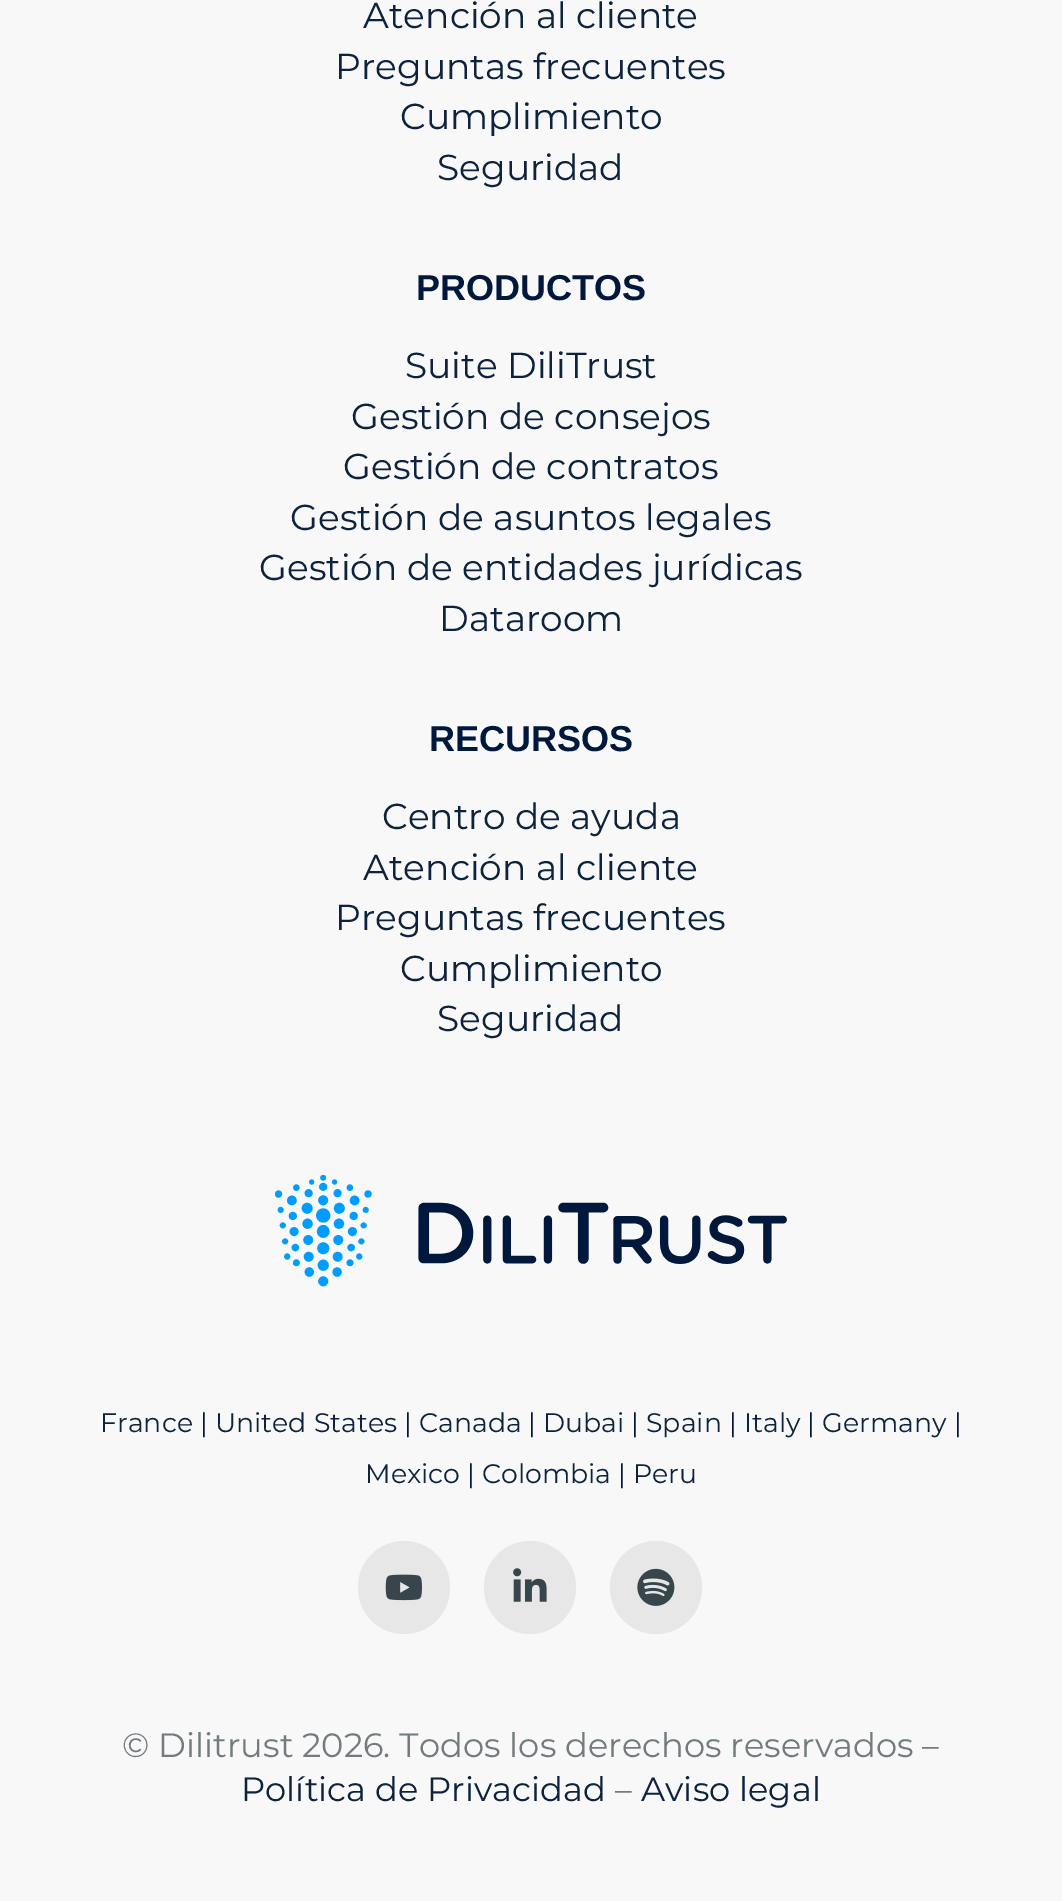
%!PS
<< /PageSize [1062 1901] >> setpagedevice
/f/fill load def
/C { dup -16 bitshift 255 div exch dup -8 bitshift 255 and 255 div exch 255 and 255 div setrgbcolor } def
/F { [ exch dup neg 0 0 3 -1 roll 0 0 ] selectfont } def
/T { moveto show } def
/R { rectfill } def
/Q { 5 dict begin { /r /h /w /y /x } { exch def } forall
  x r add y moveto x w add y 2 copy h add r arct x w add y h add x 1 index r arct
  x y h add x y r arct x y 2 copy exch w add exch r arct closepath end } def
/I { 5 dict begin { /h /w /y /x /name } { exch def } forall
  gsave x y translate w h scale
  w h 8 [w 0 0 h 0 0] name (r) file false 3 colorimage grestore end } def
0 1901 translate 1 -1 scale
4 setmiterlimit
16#F8F8F8 C
0 0 1062 1901 R
/Montserrat-Regular 36 F
16#0D233D C
(Atención al cliente) 363 28 T
(Preguntas frecuentes) 335 79 T
(Cumplimiento) 400 129 T
(Seguridad) 437 180 T
/LiberationSans-Bold 36 F
16#00183C C
(PRODUCTOS) 416 300 T
/Montserrat-Regular 36 F
16#0D233D C
(Suite DiliTrust) 405 378 T
(Gestión de consejos) 351 429 T
(Gestión de contratos) 343 479 T
(Gestión de asuntos legales) 290 530 T
(Gestión de entidades jurídicas) 259 580 T
(Dataroom) 439 631 T
/LiberationSans-Bold 36 F
16#00183C C
(RECURSOS) 429 751 T
/Montserrat-Regular 36 F
16#0D233D C
(Centro de ayuda) 382 829 T
(Atención al cliente) 363 880 T
(Preguntas frecuentes) 335 930 T
(Cumplimiento) 400 981 T
(Seguridad) 437 1031 T
(1.rgb) 275 1175 512 112 I
/Montserrat-Regular 26.75 F
(France) 100 1432 T
16#00183C C
(|) 200 1432 T
16#0D233D C
(United States) 215 1432 T
16#00183C C
(|) 404 1432 T
16#0D233D C
(Canada) 419 1432 T
16#00183C C
(|) 528 1432 T
16#0D233D C
(Dubai) 543 1432 T
16#00183C C
(|) 631 1432 T
16#0D233D C
(Spain) 646 1432 T
16#00183C C
(|) 729 1432 T
16#0D233D C
(Italy) 744 1432 T
16#00183C C
(|) 807 1432 T
16#0D233D C
(Germany) 822 1432 T
16#00183C C
(|) 954 1432 T
16#0D233D C
(Mexico) 365 1483 T
16#00183C C
(|) 467 1483 T
16#0D233D C
(Colombia) 482 1483 T
16#00183C C
(|) 618 1483 T
16#0D233D C
(Peru) 633 1483 T
16#E7E7E7 C
358 1541 92 93 46 Q f
(2.rgb) 385 1574 37 27 I
484 1541 92 93 46 Q f
(3.rgb) 513 1568 34 34 I
610 1541 92 93 46 Q f
(4.rgb) 637 1568 38 38 I
/Montserrat-Regular 33.75 F
16#727B7E C
(© Dilitrust 2026. Todos los derechos reservados –) 122 1757 T
16#0D233D C
(Política de Privacidad) 241 1801 T
16#727B7E C
(–) 615 1801 T
16#0D233D C
(Aviso legal) 641 1801 T
showpage
